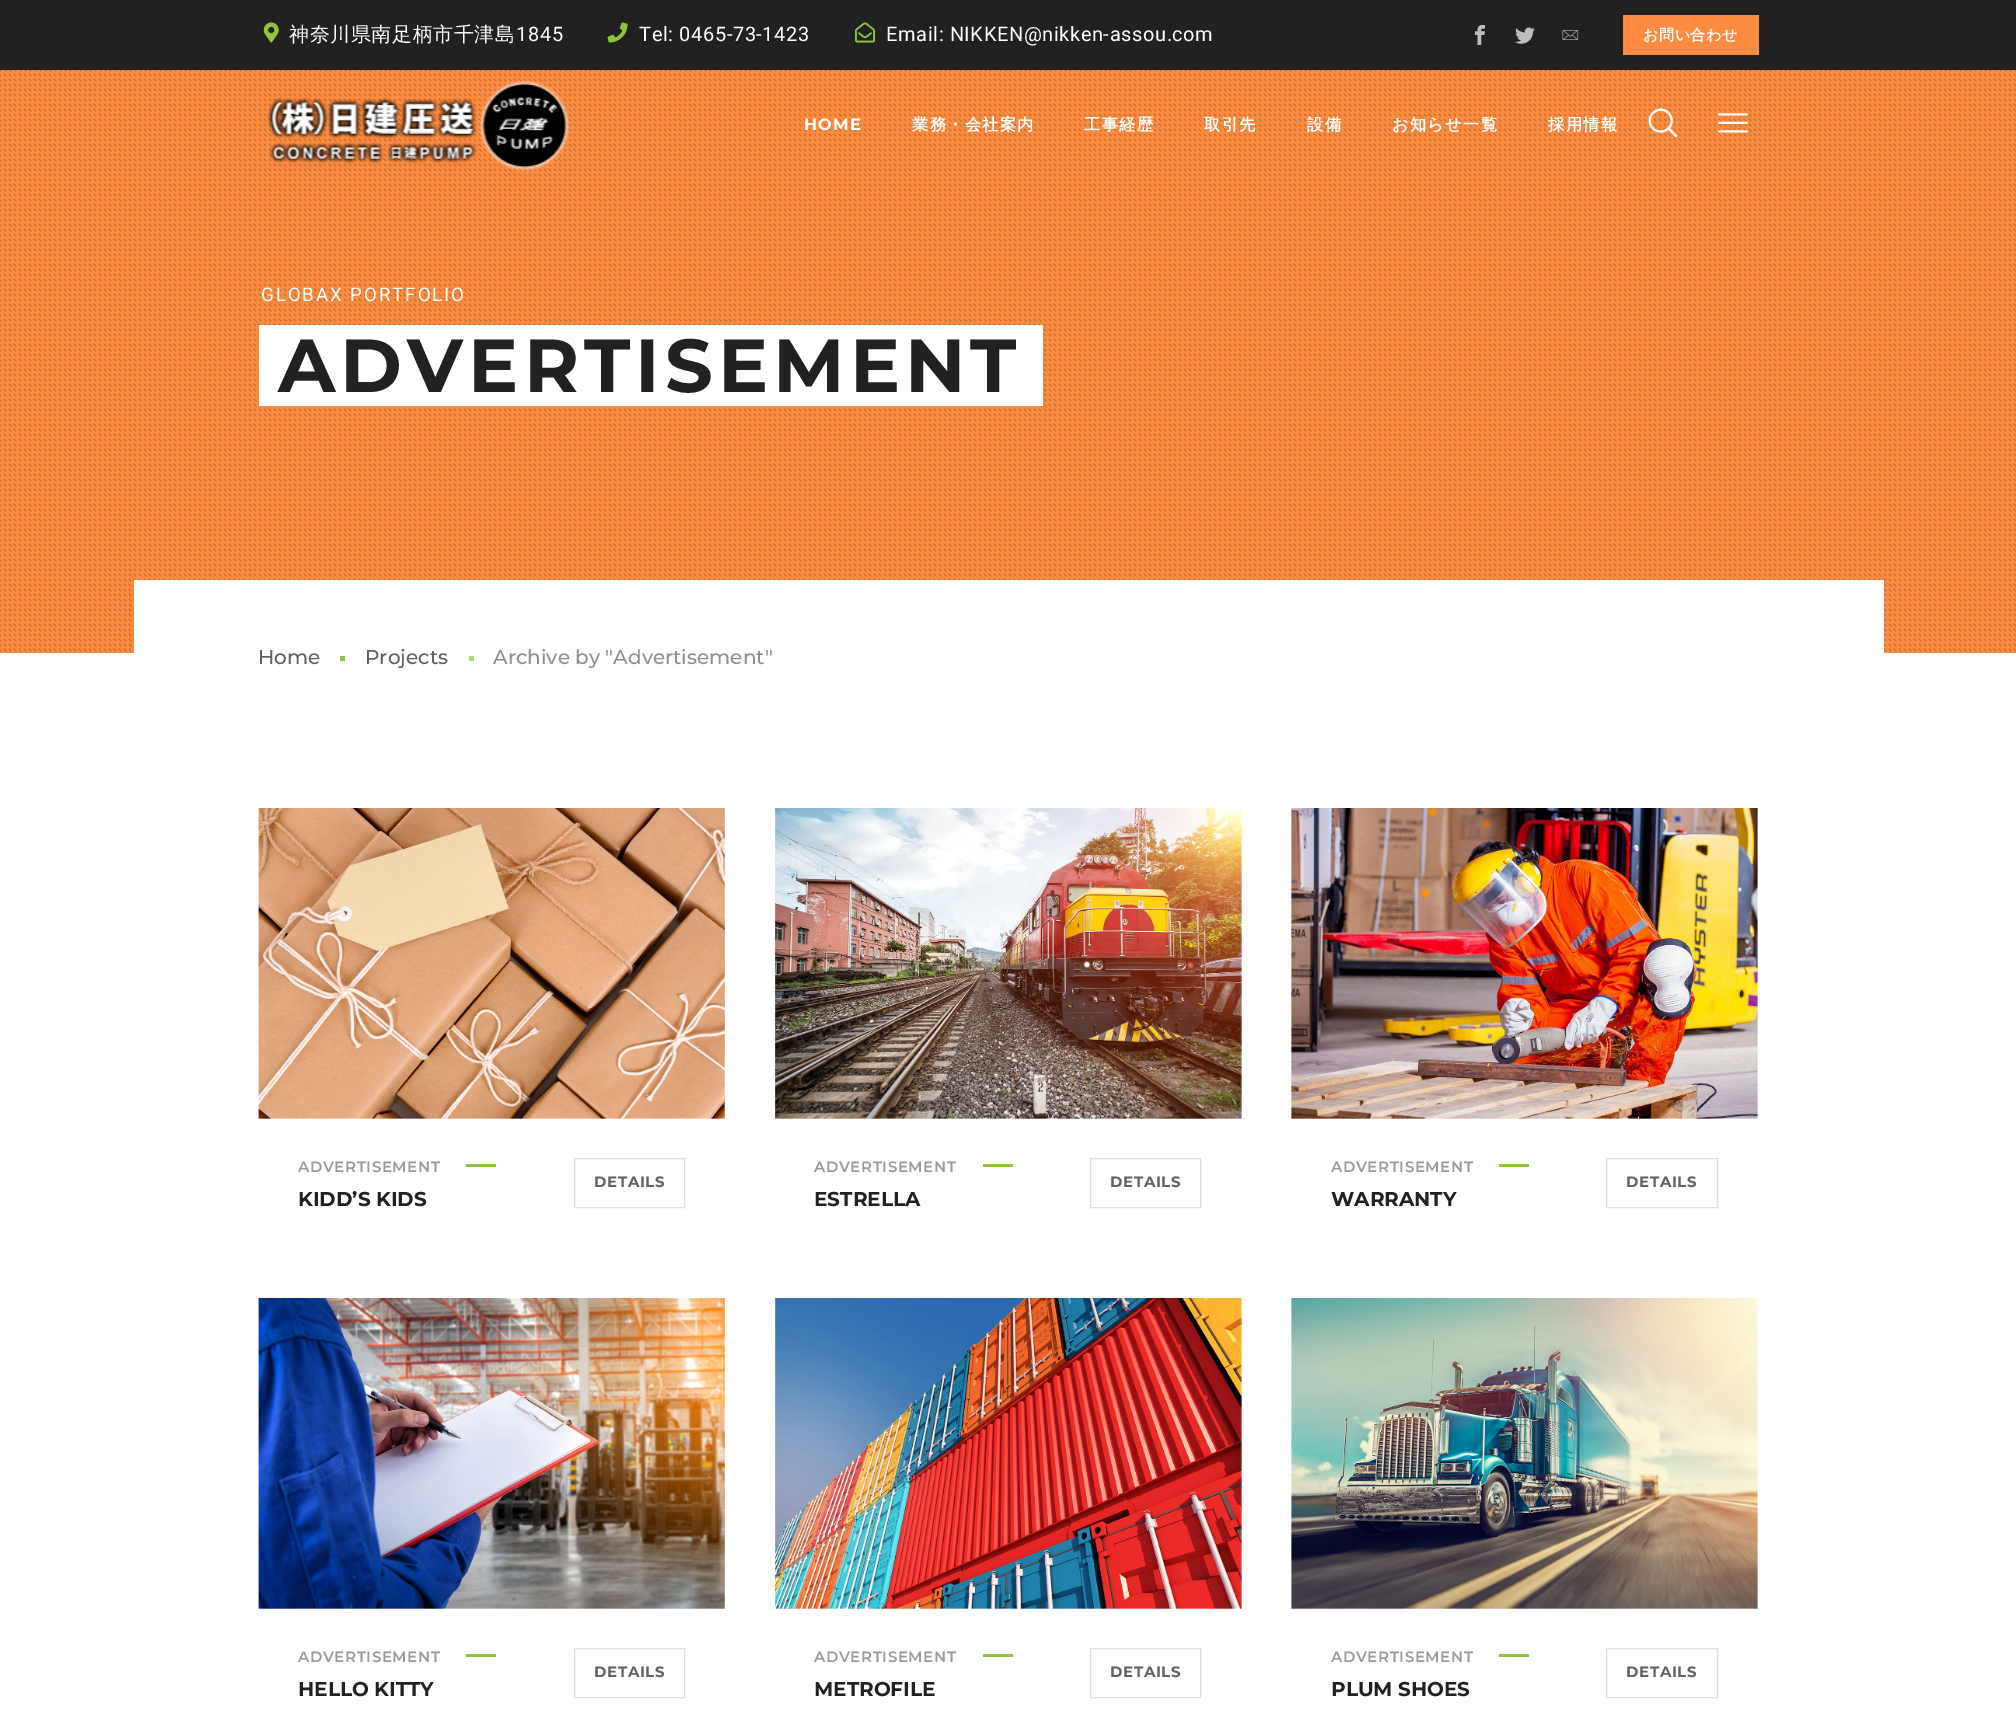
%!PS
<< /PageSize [2016 1721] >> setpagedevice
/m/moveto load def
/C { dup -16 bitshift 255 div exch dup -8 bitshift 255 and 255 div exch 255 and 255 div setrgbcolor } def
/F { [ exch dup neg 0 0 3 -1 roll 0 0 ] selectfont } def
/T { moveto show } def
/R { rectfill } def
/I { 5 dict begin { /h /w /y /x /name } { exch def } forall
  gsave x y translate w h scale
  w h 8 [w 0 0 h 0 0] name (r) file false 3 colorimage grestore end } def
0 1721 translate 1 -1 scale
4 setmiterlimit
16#FFFFFF C
0 0 2016 1721 R
16#212121 C
0 0 2016 70 R
(1.rgb) 263 22 16 21 I
/WenQuanYiZenHei-Medium 20 F
16#FFFFFF C
289 41 m .6 0 (神奈川県南足柄市千津島) ashow
/Roboto-Regular 20 F
516 41 m .6 0 (1845) ashow
(2.rgb) 607 22 21 21 I
639 41 m .6 0 (Tel: 0465-73-1423) ashow
(3.rgb) 855 22 20 21 I
886 41 m .6 0 (Email: NIKKEN@nikken-assou.com) ashow
(4.rgb) 1475 25 10 20 I
(5.rgb) 1515 27 20 17 I
(6.rgb) 1562 30 17 10 I
16#FD8C40 C
1623 15 136 40 R
/WenQuanYiZenHei-Bold 15 F
16#FFFFFF C
1643 40 m .6 0 (お問い合わせ) ashow
16#FD8C40 C
0 70 2016 583 R
(8.rgb) 0 70 2016 582 I
(7.rgb) 267 79 304 93 I
/Montserrat-Bold 16.25 F
16#FFFFFF C
804 130 m 1.25 0 (HOME) ashow
/WenQuanYiZenHei-Bold 16.25 F
912 130 m 1.25 0 (業務・会社案内) ashow
1084 130 m 1.25 0 (工事経歴) ashow
1204 130 m 1.25 0 (取引先) ashow
1307 130 m 1.25 0 (設備) ashow
1392 130 m 1.25 0 (お知らせ一覧) ashow
1548 130 m 1.25 0 (採用情報) ashow
/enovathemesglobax-Regular 30 F
1648 136 m .6 0 (꤁) ashow
1718 136 m .6 0 (꤀) ashow
/Roboto-Regular 18.75 F
261 301 m 1.9 0 (GLOBAX PORTFOLIO) ashow
259 325 784 81 R
/Montserrat-Bold 75 F
16#212121 C
278 392 m 5 0 (ADVERTISEMENT) ashow
16#FFFFFF C
134 580 1750 73 R
/Montserrat-Medium 20 F
16#616161 C
(Home) 258 664 T
16#8EC43E C
340 656 5 5 R
16#616161 C
(Projects) 365 664 T
16#B0D678 C
469 656 5 5 R
16#909090 C
(Archive by "Advertisement") 493 664 T
(9.rgb) 258 808 467 311 I
/Montserrat-SemiBold 15 F
16#9A9A9A C
298 1172 m .6 0 (ADVERTISEMENT) ashow
16#8EC43E C
466 1164 30 3 R
/Montserrat-Bold 20 F
16#212121 C
(KIDD’S KIDS) 298 1206 T
16#E0E0E0 C
574.5 1158.5 110 49 rectstroke
/Montserrat-Bold 15 F
16#616161 C
594 1187 m .6 0 (DETAILS) ashow
(10.rgb) 775 808 467 311 I
/Montserrat-SemiBold 15 F
16#9A9A9A C
814 1172 m .6 0 (ADVERTISEMENT) ashow
16#8EC43E C
983 1164 30 3 R
/Montserrat-Bold 20 F
16#212121 C
(ESTRELLA) 814 1206 T
16#E0E0E0 C
1090.5 1158.5 110 49 rectstroke
/Montserrat-Bold 15 F
16#616161 C
1110 1187 m .6 0 (DETAILS) ashow
(11.rgb) 1291 808 467 311 I
/Montserrat-SemiBold 15 F
16#9A9A9A C
1331 1172 m .6 0 (ADVERTISEMENT) ashow
16#8EC43E C
1499 1164 30 3 R
/Montserrat-Bold 20 F
16#212121 C
(WARRANTY) 1331 1206 T
16#E0E0E0 C
1606.5 1158.5 111 49 rectstroke
/Montserrat-Bold 15 F
16#616161 C
1626 1187 m .6 0 (DETAILS) ashow
(12.rgb) 258 1298 467 311 I
/Montserrat-SemiBold 15 F
16#9A9A9A C
298 1662 m .6 0 (ADVERTISEMENT) ashow
16#8EC43E C
466 1654 30 3 R
/Montserrat-Bold 20 F
16#212121 C
(HELLO KITTY) 298 1696 T
16#E0E0E0 C
574.5 1648.5 110 49 rectstroke
/Montserrat-Bold 15 F
16#616161 C
594 1677 m .6 0 (DETAILS) ashow
(13.rgb) 775 1298 467 311 I
/Montserrat-SemiBold 15 F
16#9A9A9A C
814 1662 m .6 0 (ADVERTISEMENT) ashow
16#8EC43E C
983 1654 30 3 R
/Montserrat-Bold 20 F
16#212121 C
(METROFILE) 814 1696 T
16#E0E0E0 C
1090.5 1648.5 110 49 rectstroke
/Montserrat-Bold 15 F
16#616161 C
1110 1677 m .6 0 (DETAILS) ashow
(14.rgb) 1291 1298 467 311 I
/Montserrat-SemiBold 15 F
16#9A9A9A C
1331 1662 m .6 0 (ADVERTISEMENT) ashow
16#8EC43E C
1499 1654 30 3 R
/Montserrat-Bold 20 F
16#212121 C
(PLUM SHOES) 1331 1696 T
16#E0E0E0 C
1606.5 1648.5 111 49 rectstroke
/Montserrat-Bold 15 F
16#616161 C
1626 1677 m .6 0 (DETAILS) ashow
showpage
